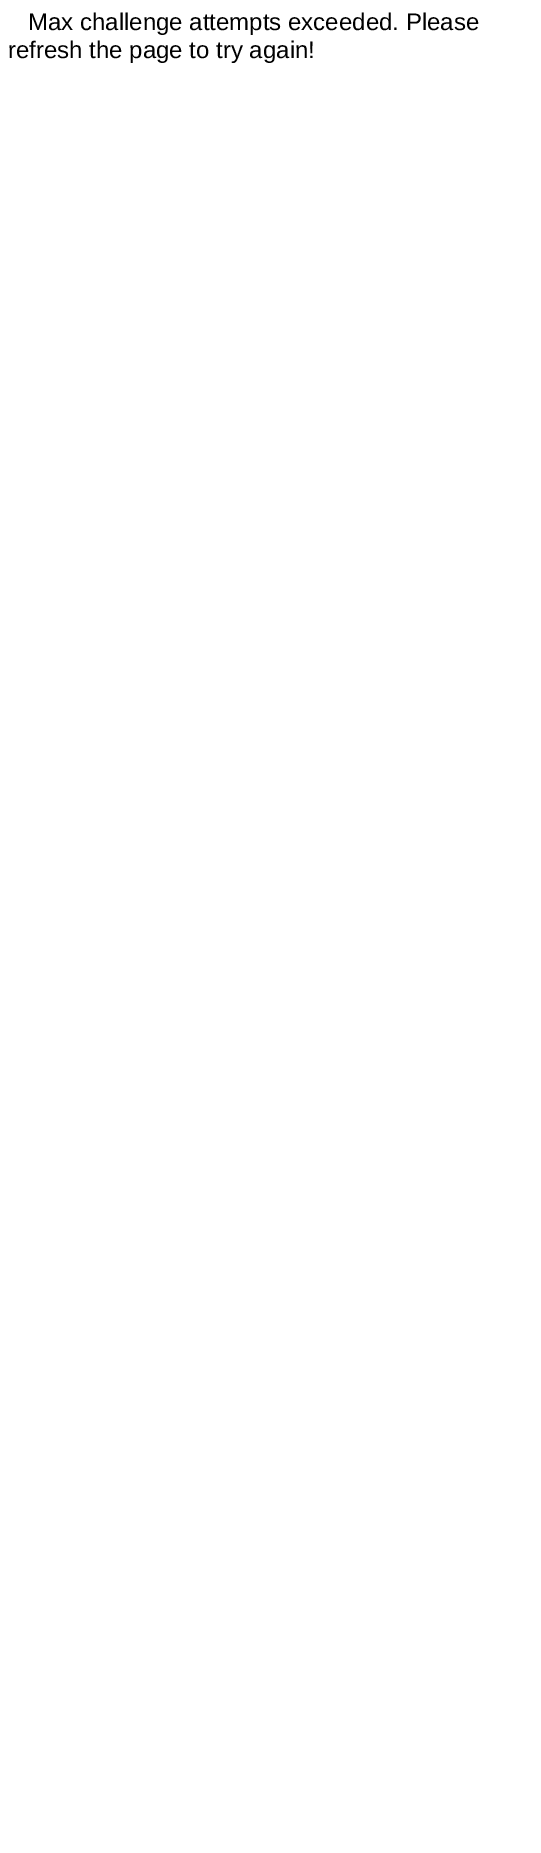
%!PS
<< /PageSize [541 1853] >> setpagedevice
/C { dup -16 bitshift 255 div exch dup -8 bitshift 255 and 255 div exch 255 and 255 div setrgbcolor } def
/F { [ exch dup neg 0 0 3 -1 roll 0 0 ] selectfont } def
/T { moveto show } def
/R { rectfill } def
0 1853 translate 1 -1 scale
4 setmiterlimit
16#FFFFFF C
0 0 541 1853 R
/LiberationSans-Regular 24 F
16#000000 C
(Max challenge attempts exceeded. Please) 28 30 T
(refresh the page to try again!) 8 58 T
showpage
